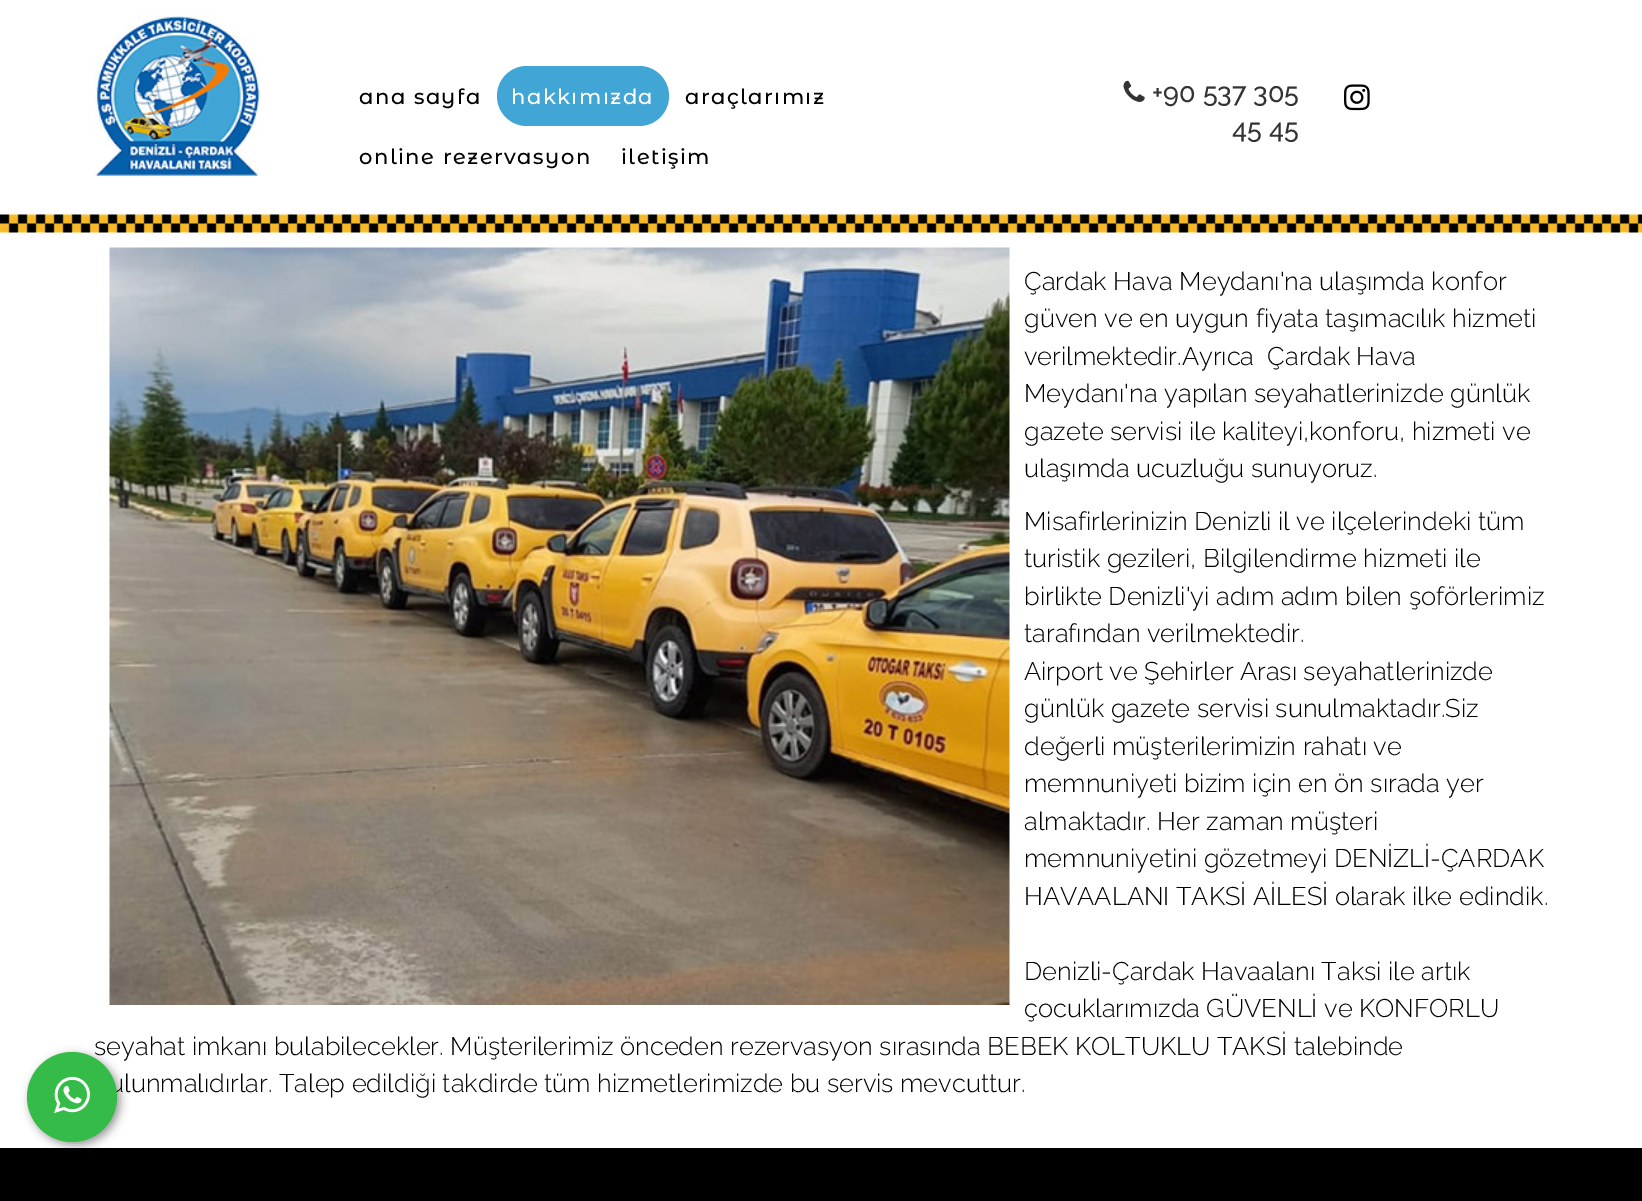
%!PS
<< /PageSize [1642 1201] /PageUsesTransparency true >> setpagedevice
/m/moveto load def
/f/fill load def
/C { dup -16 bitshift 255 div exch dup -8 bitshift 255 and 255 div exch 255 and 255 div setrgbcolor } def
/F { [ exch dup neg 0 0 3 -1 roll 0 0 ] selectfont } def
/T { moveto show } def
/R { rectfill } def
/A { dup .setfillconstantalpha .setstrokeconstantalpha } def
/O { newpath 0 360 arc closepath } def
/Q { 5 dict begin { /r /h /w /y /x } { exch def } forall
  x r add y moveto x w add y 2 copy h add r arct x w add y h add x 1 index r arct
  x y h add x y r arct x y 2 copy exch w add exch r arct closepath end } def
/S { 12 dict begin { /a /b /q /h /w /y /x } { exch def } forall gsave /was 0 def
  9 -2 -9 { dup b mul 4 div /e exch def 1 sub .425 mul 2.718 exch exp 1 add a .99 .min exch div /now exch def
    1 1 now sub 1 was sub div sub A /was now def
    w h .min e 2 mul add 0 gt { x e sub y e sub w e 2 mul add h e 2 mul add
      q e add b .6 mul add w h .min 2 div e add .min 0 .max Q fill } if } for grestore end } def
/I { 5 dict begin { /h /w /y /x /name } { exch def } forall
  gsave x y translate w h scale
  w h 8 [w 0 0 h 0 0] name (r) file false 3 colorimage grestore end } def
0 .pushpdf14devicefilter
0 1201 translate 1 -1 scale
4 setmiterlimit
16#FFFFFF C
0 0 1642 1201 R
(1.rgb) 94 15 166 162 I
/MontserratAlternates-Medium 21 F
16#000000 C
359 104 m 1.5 0 (ana sayfa) ashow
16#41A5D6 C
497 66 172 60 30 Q f
16#FFFFFF C
511 104 m 1.5 0 (hakkımızda) ashow
16#000000 C
685 104 m 1.5 0 (araçlarımız) ashow
359 164 m 1.5 0 (online rezervasyon) ashow
621 164 m 1.5 0 (iletişim) ashow
(2.rgb) 1123 80 22 22 I
/Raleway-Medium 27 F
16#333333 C
(+90 537 305) 1152 102 T
(45 45) 1232 138 T
(3.rgb) 1344 84 26 27 I
(4.rgb) 0 214 1642 19 I
16#000000 C
0 1148 1642 53 R
30 1055 90 90 45 4.5 .4 S
/Raleway-Light 25.5 F
(seyahat imkanı bulabilecekler. Müşterilerimiz önceden rezervasyon sırasında BEBEK KOLTUKLU TAKSİ talebinde) 94 1055 T
(ulunmalıdırlar. Talep edildiği takdirde tüm hizmetlerimizde bu servis mevcuttur.) 109 1092 T
16#35BC48 C
72 1097 45 O f
(5.rgb) 54 1076 36 38 I
(6.rgb) 109 247 901 758 I
16#000000 C
(Çardak Hava Meydanı'na ulaşımda konfor) 1024 290 T
(güven ve en uygun fiyata taşımacılık hizmeti) 1024 327 T
(verilmektedir.Ayrıca  Çardak Hava) 1024 365 T
(Meydanı'na yapılan seyahatlerinizde günlük) 1024 402 T
(gazete servisi ile kaliteyi,konforu, hizmeti ve) 1024 440 T
(ulaşımda ucuzluğu sunuyoruz.) 1024 477 T
(Misafirlerinizin Denizli il ve ilçelerindeki tüm) 1024 530 T
(turistik gezileri, Bilgilendirme hizmeti ile) 1024 567 T
(birlikte Denizli'yi adım adım bilen şoförlerimiz) 1024 605 T
(tarafından verilmektedir.) 1024 642 T
(Airport ve Şehirler Arası seyahatlerinizde) 1024 680 T
(günlük gazete servisi sunulmaktadır.Siz) 1024 717 T
(değerli müşterilerimizin rahatı ve) 1024 755 T
(memnuniyeti bizim için en ön sırada yer) 1024 792 T
(almaktadır. Her zaman müşteri) 1024 830 T
(memnuniyetini gözetmeyi DENİZLİ-ÇARDAK) 1024 867 T
(HAVAALANI TAKSİ AİLESİ olarak ilke edindik.) 1024 905 T
(Denizli-Çardak Havaalanı Taksi ile artık) 1024 980 T
(çocuklarımızda GÜVENLİ ve KONFORLU) 1024 1017 T
.poppdf14devicefilter showpage
